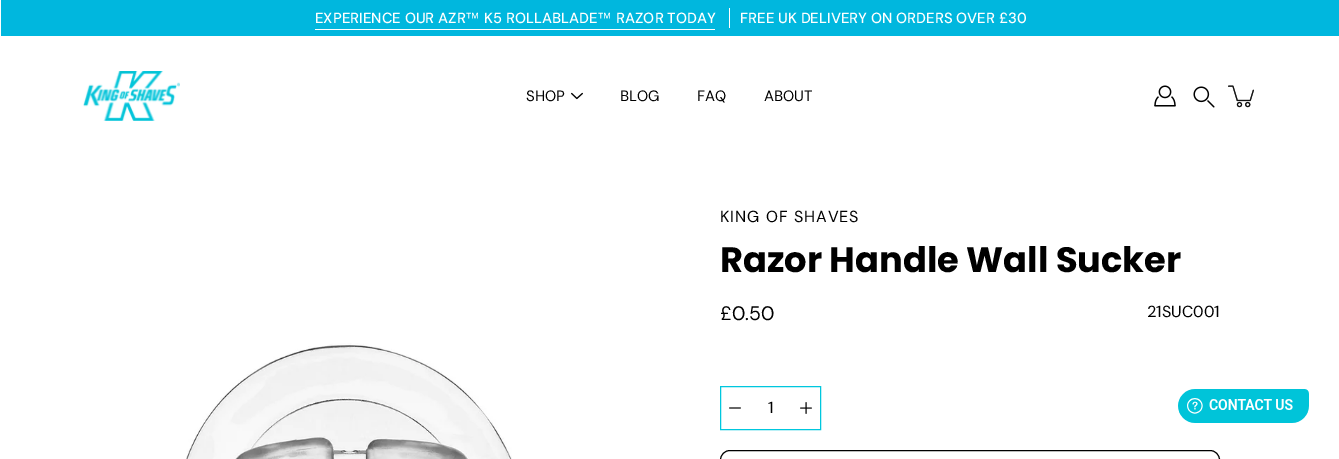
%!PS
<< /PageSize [1339 459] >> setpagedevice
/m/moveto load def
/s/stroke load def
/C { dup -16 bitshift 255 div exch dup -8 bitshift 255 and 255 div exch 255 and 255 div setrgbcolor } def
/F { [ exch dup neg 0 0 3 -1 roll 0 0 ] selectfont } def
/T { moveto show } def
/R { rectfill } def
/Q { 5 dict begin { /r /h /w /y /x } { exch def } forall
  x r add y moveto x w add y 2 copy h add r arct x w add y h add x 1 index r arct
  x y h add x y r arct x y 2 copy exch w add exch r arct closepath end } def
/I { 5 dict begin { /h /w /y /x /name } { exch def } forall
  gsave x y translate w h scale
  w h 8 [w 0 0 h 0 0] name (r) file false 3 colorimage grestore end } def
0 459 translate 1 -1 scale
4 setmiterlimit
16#FFFFFF C
0 0 1339 459 R
16#00B7DE C
1 0 1338 36 R
/DMSans-Medium 14.75 F
16#FFFFFF C
(EXPERIENCE OUR AZR) 315 23 T
/LiberationSans-Regular 14.75 F
(™) 465 23 T
/DMSans-Medium 14.75 F
(K5 ROLLABLADE) 484 23 T
/LiberationSans-Regular 14.75 F
(™) 597 23 T
/DMSans-Medium 14.75 F
(RAZOR TODAY) 616 23 T
315 29 400 1 R
(FREE UK DELIVERY ON ORDERS OVER £30) 740 23 T
729 8 1 20 R
(1.rgb) 83 71 97 50 I
/DMSans-Regular 15 F
16#000000 C
(SHOP) 526 101 T
(2.rgb) 571 92 12 8 I
(BLOG) 620 101 T
(FAQ) 697 101 T
(ABOUT) 764 101 T
(3.rgb) 1154 85 22 22 I
(4.rgb) 1193 86 22 22 I
(5.rgb) 1228 85 26 23 I
(6.rgb) 186 343 326 116 I
/DMSans-Regular 16 F
720 222 m 1 0 (KING OF SHAVES) ashow
/Poppins-Bold 35.25 F
(Razor Handle Wall Sucker) 720 272 T
/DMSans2-Regular 19.5 F
(£0.50) 720 320 T
/DMSans-Regular 16 F
(21SUC001) 1147 317 T
16#00C7DE C
720.5 386.5 100 43 rectstroke
(7.rgb) 729 407 12 2 I
16#000000 C
(1) 768 413 T
(8.rgb) 800 402 12 12 I
720.5 450.5 499 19 9.5 Q s
(9.rgb) 1178 389 131 34 I
showpage
